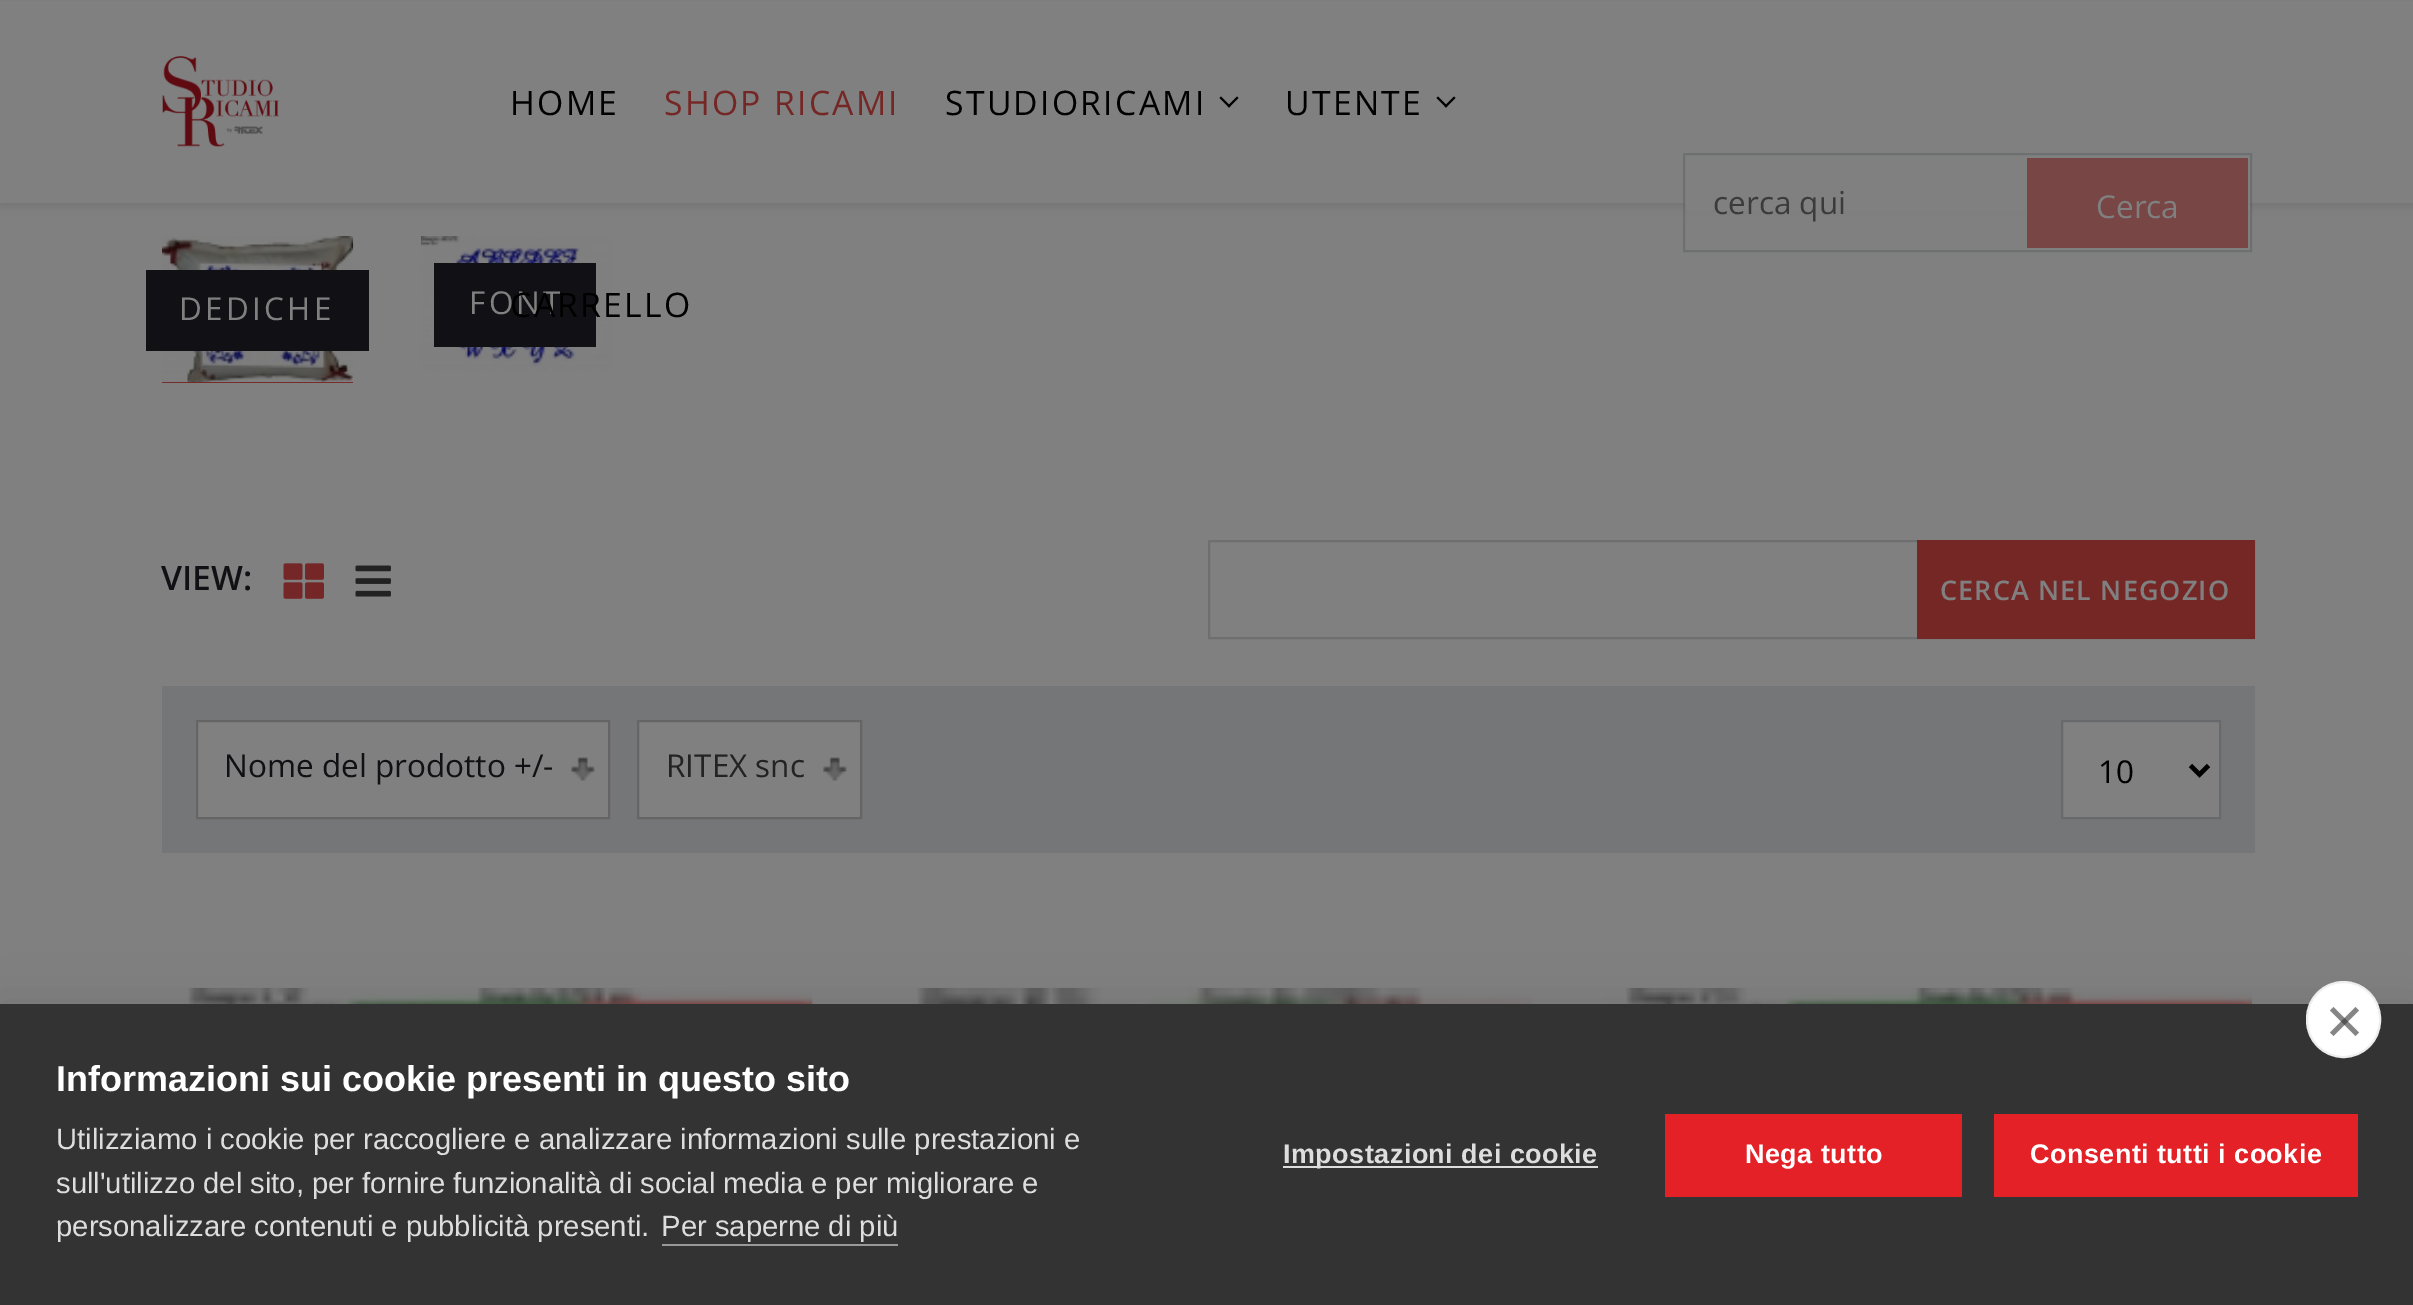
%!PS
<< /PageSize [2413 1305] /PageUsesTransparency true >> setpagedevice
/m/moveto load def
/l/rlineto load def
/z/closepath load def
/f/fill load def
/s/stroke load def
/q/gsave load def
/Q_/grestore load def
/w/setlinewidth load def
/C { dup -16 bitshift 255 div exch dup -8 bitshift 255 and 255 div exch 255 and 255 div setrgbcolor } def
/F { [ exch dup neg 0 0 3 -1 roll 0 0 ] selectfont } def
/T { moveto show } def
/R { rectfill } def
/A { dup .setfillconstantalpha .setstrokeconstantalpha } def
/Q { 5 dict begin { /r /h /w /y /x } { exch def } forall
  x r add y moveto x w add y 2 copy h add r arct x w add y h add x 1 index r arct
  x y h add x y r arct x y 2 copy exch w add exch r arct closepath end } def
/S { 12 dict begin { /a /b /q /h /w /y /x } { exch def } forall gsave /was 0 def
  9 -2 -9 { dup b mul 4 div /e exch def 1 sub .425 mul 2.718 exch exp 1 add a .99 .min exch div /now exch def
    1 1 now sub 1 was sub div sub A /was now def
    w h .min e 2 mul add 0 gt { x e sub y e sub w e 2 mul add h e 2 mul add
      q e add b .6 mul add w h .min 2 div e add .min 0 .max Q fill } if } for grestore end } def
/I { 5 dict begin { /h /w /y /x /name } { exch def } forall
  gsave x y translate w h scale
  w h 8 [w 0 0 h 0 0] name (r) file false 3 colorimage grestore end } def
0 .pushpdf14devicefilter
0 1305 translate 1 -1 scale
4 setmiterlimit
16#808080 C
0 0 2413 1305 R
16#000000 C
0 5 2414 202 0 4.5 .1 S
16#808080 C
0 1 2413 202 R
(1.rgb) 162 56 117 91 I
/OpenSans-Regular 33.75 F
16#000000 C
510 115 m 2.25 0 (HOME) ashow
16#752726 C
664 115 m 2.25 0 (SHOP RICAMI) ashow
16#000000 C
945 115 m 2.25 0 (STUDIORICAMI) ashow
1237 96.5 m 1.5 1.5 l -9.5 9.5 l -1.5 -1.5 l z f
1221 96.5 m 9.5 9.5 l -1.5 1.5 l -9.5 -9.5 l z f
1285 115 m 2.25 0 (UTENTE) ashow
1454 96.5 m 1.5 1.5 l -9.5 9.5 l -1.5 -1.5 l z f
1438 96.5 m 9.5 9.5 l -1.5 1.5 l -9.5 -9.5 l z f
(3.rgb) 420 236 192 135 I
16#111115 C
434 263 162 84 R
/OpenSans-Regular 31.5 F
16#808080 C
469 314 m 3.25 0 (FONT) ashow
/OpenSans-Regular 33.75 F
16#000000 C
510 317 m 2.25 0 (CARRELLO) ashow
16#808080 C
1685 203 565 8 R
0.4 A
16#52565A C
2 w
1684 154 567 97 rectstroke
/OpenSans-Regular 31.5 F
1 A
16#3B3B3B C
(cerca qui) 1713 214 T
16#794646 C
2027 158 221 90 R
16#808080 C
(Cerca) 2096 218 T
16#752726 C
162 382 191 1 R
(2.rgb) 162 236 192 147 I
16#111115 C
146 270 223 81 R
16#808080 C
179 320 m 3.25 0 (DEDICHE) ashow
/OpenSans-SemiBold 33.75 F
16#111115 C
(VIEW:) 161 590 T
(4.rgb) 283 563 41 36 I
(5.rgb) 355 565 36 32 I
16#6E6F71 C
1209 541 1045 97 rectstroke
16#752726 C
1917 540 338 99 R
/OpenSans-SemiBold 27 F
16#808080 C
1940 600 m 1.1 0 (CERCA NEL NEGOZIO) ashow
16#757678 C
162 686 2093 167 R
16#808080 C
198 722 410 95 R
(6.rgb) 571 757 24 24 I
16#656565 C
197 721 412 97 rectstroke
/OpenSans-Regular 31.5 F
16#111115 C
(Nome del prodotto +/-) 224 777 T
16#808080 C
639 722 221 95 R
(6.rgb) 823 757 24 24 I
16#656565 C
638 721 223 97 rectstroke
16#232323 C
(RITEX snc) 666 777 T
16#808080 C
2062 721 m 158 0 l 0 97 l -158 0 l z q f Q_
16#67696C C
s
16#000000 C
4.5 w
2190.5 765.5 m 9 9 l 9 -9 l s
(10) 2098 783 T
(7.rgb) 162 988 651 16 I
(8.rgb) 917 988 616 16 I
(9.rgb) 1600 988 652 16 I
0 1004 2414 301 0 22.5 .1 S
16#333333 C
0 1004 2413 301 R
16#FFFFFF C
2307 982 73 75 36.5 Q q f Q_
16#EEEEEE C
2 w
s
16#858585 C
2330 1032.5 m 25.5 -25.5 l 3.5 3.5 l -25.5 25.5 l z f
0.6 A
16#333333 C
2333.5 1007 m 25.5 25.5 l -3.5 3.5 l -25.5 -25.5 l z f
/LiberationSans-Bold 36 F
1 A
16#FFFFFF C
(Informazioni sui cookie presenti in questo sito) 56 1091 T
/LiberationSans-Regular 29.25 F
16#DDDDDD C
(Utilizziamo i cookie per raccogliere e analizzare informazioni sulle prestazioni e) 56 1149 T
(sull'utilizzo del sito, per fornire funzionalità di social media e per migliorare e) 56 1193 T
(personalizzare contenuti e pubblicità presenti.) 56 1236 T
(Per saperne di più) 661 1236 T
16#999999 C
662 1244 236 2 R
16#DDDDDD C
1283 1166 315 2 R
/LiberationSans-Bold 27 F
1283 1163 m .45 0 (Impostazioni dei cookie) ashow
16#E42127 C
1665 1114 297 83 R
16#FFFFFF C
1745 1163 m .45 0 (Nega tutto) ashow
16#E42127 C
1994 1114 364 83 R
16#FFFFFF C
2030 1163 m .45 0 (Consenti tutti i cookie) ashow
.poppdf14devicefilter showpage
